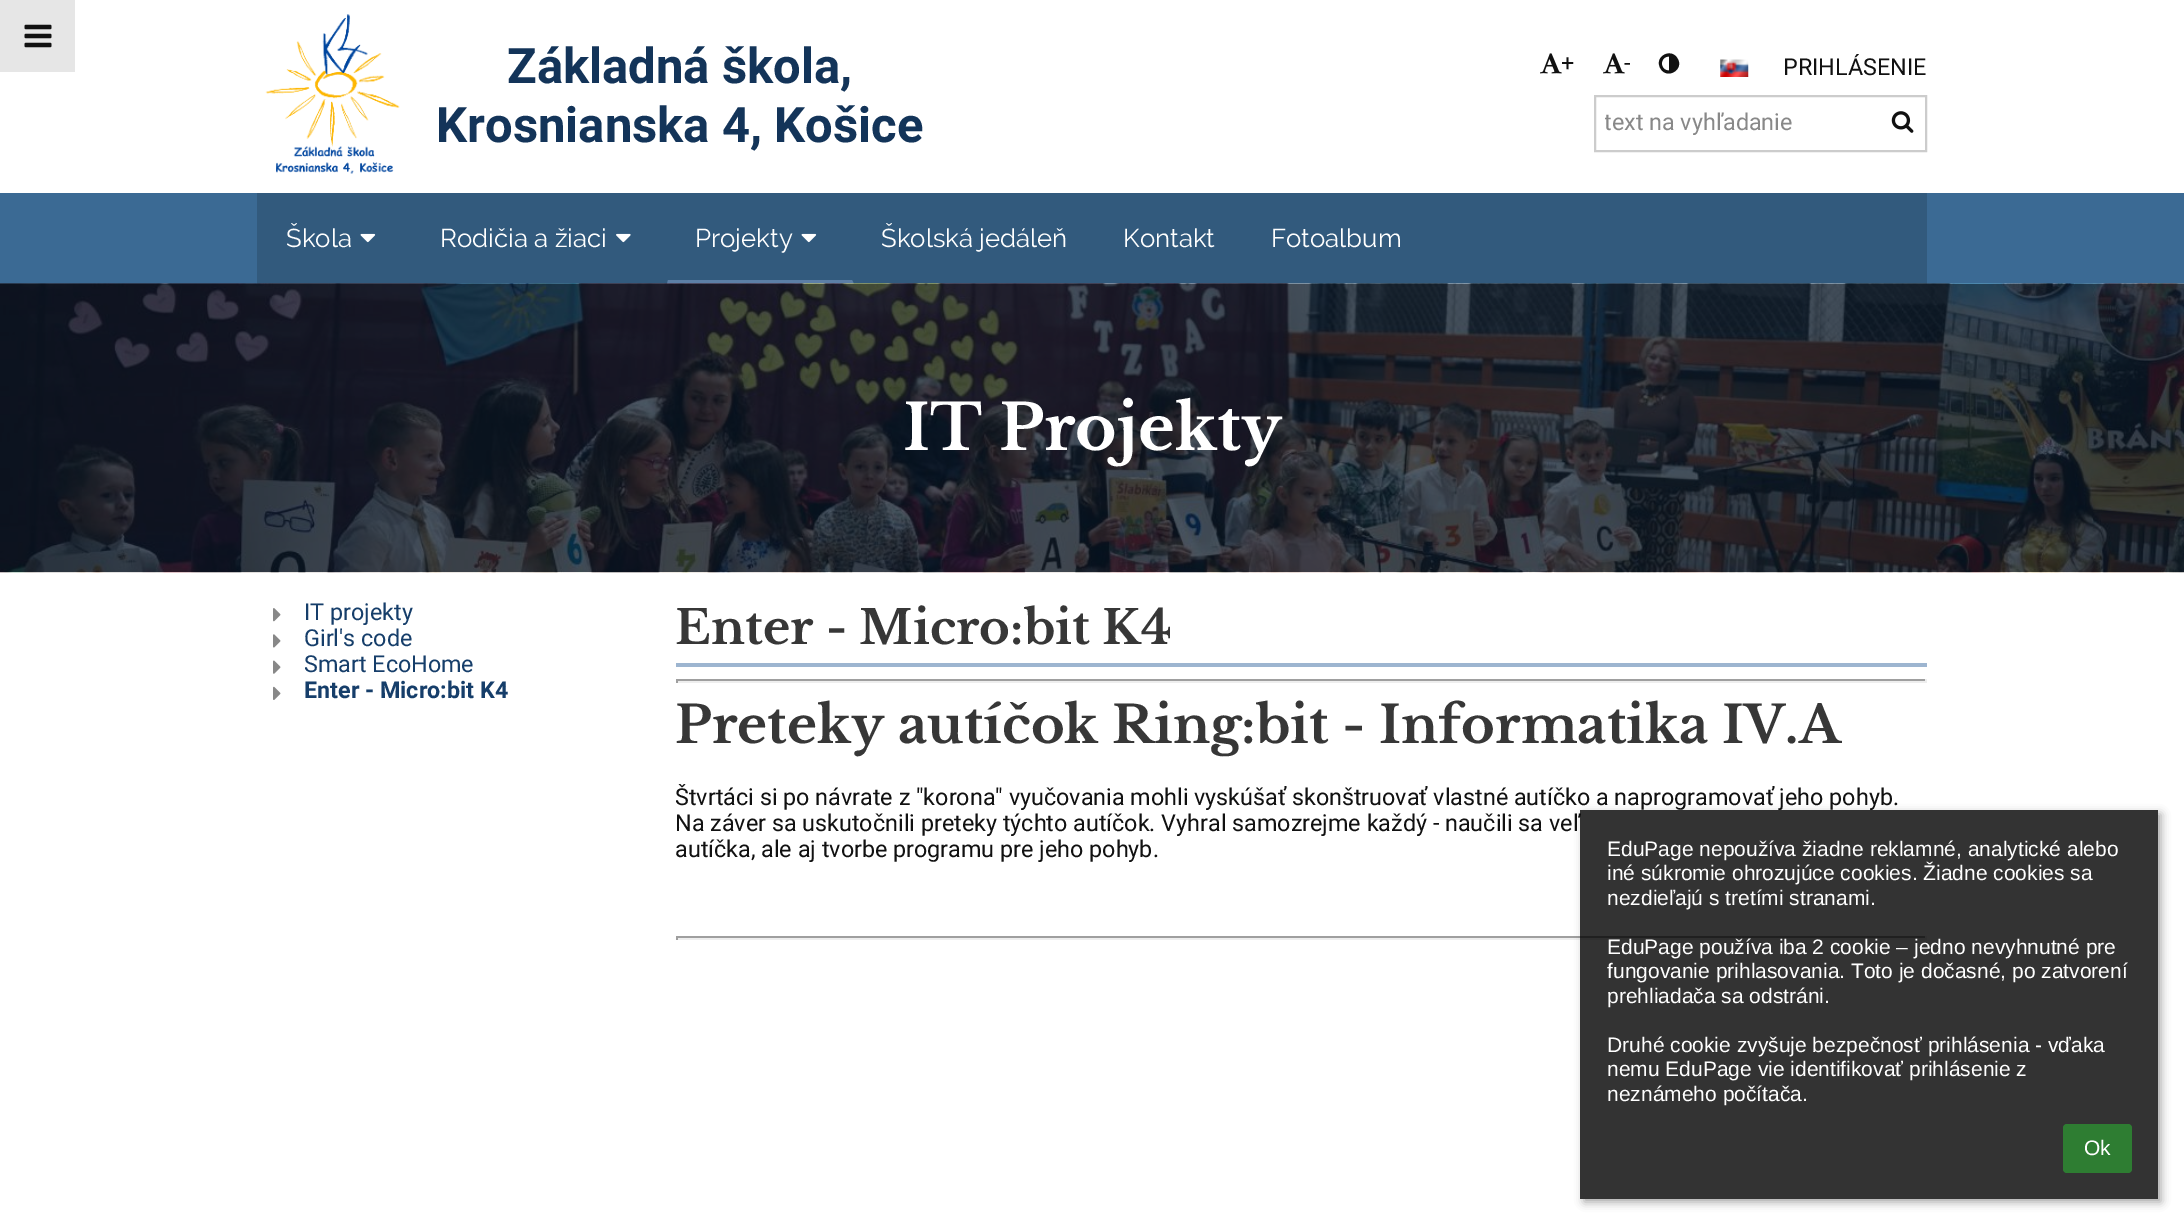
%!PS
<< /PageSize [2184 1225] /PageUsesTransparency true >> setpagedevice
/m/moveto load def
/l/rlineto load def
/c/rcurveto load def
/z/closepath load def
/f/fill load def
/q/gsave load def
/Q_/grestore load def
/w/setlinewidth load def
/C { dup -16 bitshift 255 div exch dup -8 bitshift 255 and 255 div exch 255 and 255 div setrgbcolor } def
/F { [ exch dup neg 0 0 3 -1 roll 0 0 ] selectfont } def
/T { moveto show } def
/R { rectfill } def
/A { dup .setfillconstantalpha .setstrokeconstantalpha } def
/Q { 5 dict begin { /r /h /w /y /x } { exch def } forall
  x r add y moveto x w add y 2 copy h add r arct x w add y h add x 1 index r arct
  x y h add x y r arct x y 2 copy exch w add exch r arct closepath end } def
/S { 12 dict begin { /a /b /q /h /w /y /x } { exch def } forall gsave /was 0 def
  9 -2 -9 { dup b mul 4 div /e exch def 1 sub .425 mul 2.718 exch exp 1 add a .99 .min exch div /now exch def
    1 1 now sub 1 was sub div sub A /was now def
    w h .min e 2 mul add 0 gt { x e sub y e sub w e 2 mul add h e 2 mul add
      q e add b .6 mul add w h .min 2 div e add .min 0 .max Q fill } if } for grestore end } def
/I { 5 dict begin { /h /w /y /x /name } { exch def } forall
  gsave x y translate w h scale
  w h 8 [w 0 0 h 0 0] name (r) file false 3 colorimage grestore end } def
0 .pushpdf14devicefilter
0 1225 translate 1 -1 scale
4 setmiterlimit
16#FFFFFF C
0 0 2184 1225 R
16#E6E6E6 C
0 0 75 72 R
(1.rgb) 24 24 28 24 I
(2.rgb) 265 14 135 160 I
/Roboto-Bold 49 F
16#133459 C
(Základná škola,) 507 83 T
(Krosnianska 4, Košice) 436 142 T
(3.rgb) 1540 53 22 21 I
/Roboto-Regular 23.33 F
16#111111 C
(+) 1561 71 T
(3.rgb) 1603 53 22 21 I
(-) 1624 71 T
1669 70.5 m 0 -14 l -9.5 0 -9.5 14 0 14 c z 1677.5 58.5 m 7 11 -10.5 21.5 -17 10 c -7 -11.5 10.5 -21.5 17 -10 c z f
(4.rgb) 1720 59 29 18 I
(PRIHLÁSENIE) 1783 75 T
16#CCCCCC C
2 w
1595 96 331 55 rectstroke
q
1605 110 268 27 rectclip
16#888888 C
(text na vyhľadanie) 1604 130 T
Q_
(5.rgb) 1891 111 23 22 I
16#3B6A94 C
0 193 2184 91 R
16#325A7D C
257 193 1670 91 R
/Raleway-Regular 25.75 F
16#FFFFFF C
(Škola) 286 247 T
(6.rgb) 360 233 16 10 I
(Rodičia a žiaci) 440 247 T
(7.rgb) 616 233 15 10 I
16#5C7FA6 C
854 284 m -187 0 l 1 -4 l 184 0 l z f
16#FFFFFF C
(Projekty) 695 247 T
(6.rgb) 801 233 16 10 I
(Školská jedáleň) 881 247 T
(Kontakt) 1123 247 T
(Fotoalbum) 1271 247 T
(8.rgb) 0 283 2184 290 I
/LibreBaskerville-Bold 63 F
(IT Projekty) 903 450 T
(9.rgb) 273 608 8 14 I
/Roboto-Regular 23.33 F
16#163E6A C
(IT projekty) 304 620 T
(10.rgb) 273 634 8 14 I
(Girl's code) 304 646 T
(11.rgb) 273 660 8 14 I
(Smart EcoHome) 304 672 T
(12.rgb) 273 686 8 14 I
/Roboto-Bold 23.33 F
(Enter - Micro:bit K4) 304 698 T
16#9DB5D0 C
676 663 1251 4 R
/LibreBaskerville-Bold 46.75 F
16#373737 C
(Enter - Micro:bit K4) 675 644 T
16#9F9F9F C
676 679 1251 2 R
16#EEEEEE C
1925 679 2 4 R
676 681 1251 2 R
16#9F9F9F C
676 679 2 4 R
/LibreBaskerville-Bold 51.3 F
16#373737 C
(Preteky autíčok Ring:bit - Informatika IV.A) 675 743 T
/Roboto-Regular 23.33 F
16#111111 C
(Štvrtáci si po návrate z "korona" vyučovania mohli vyskúšať skonštruovať vlastné autíčko a naprogramovať jeho pohyb.) 675 805 T
(Na záver sa uskutočnili preteky týchto autíčok. Vyhral samozrejme každý - naučili sa veľ) 675 831 T
(autíčka, ale aj tvorbe programu pre jeho pohyb.) 675 857 T
16#9F9F9F C
676 936 1251 2 R
16#EEEEEE C
1925 936 2 4 R
676 938 1251 2 R
16#9F9F9F C
676 936 2 4 R
q
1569 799 m 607 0 l 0 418 l -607 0 l z 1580 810 m 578 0 l 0 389 l -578 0 l z eoclip newpath
16#000000 C
1584 814 577 388 0 4.5 .35 S
Q_
0.8 A
16#000000 C
1580 810 578 389 R
/LiberationSans-Regular 21 F
1 A
16#FFFFFF C
(EduPage nepoužíva žiadne reklamné, analytické alebo) 1607 856 T
(iné súkromie ohrozujúce cookies. Žiadne cookies sa) 1607 880 T
(nezdieľajú s tretími stranami.) 1607 905 T
(EduPage používa iba 2 cookie – jedno nevyhnutné pre) 1607 954 T
(fungovanie prihlasovania. Toto je dočasné, po zatvorení) 1607 978 T
(prehliadača sa odstráni.) 1607 1003 T
(Druhé cookie zvyšuje bezpečnosť prihlásenia - vďaka) 1607 1052 T
(nemu EduPage vie identifikovať prihlásenie z) 1607 1076 T
(neznámeho počítača.) 1607 1101 T
16#2E7D32 C
2063 1124 69 49 4 Q f
16#FFFFFF C
(Ok) 2084 1155 T
.poppdf14devicefilter showpage
